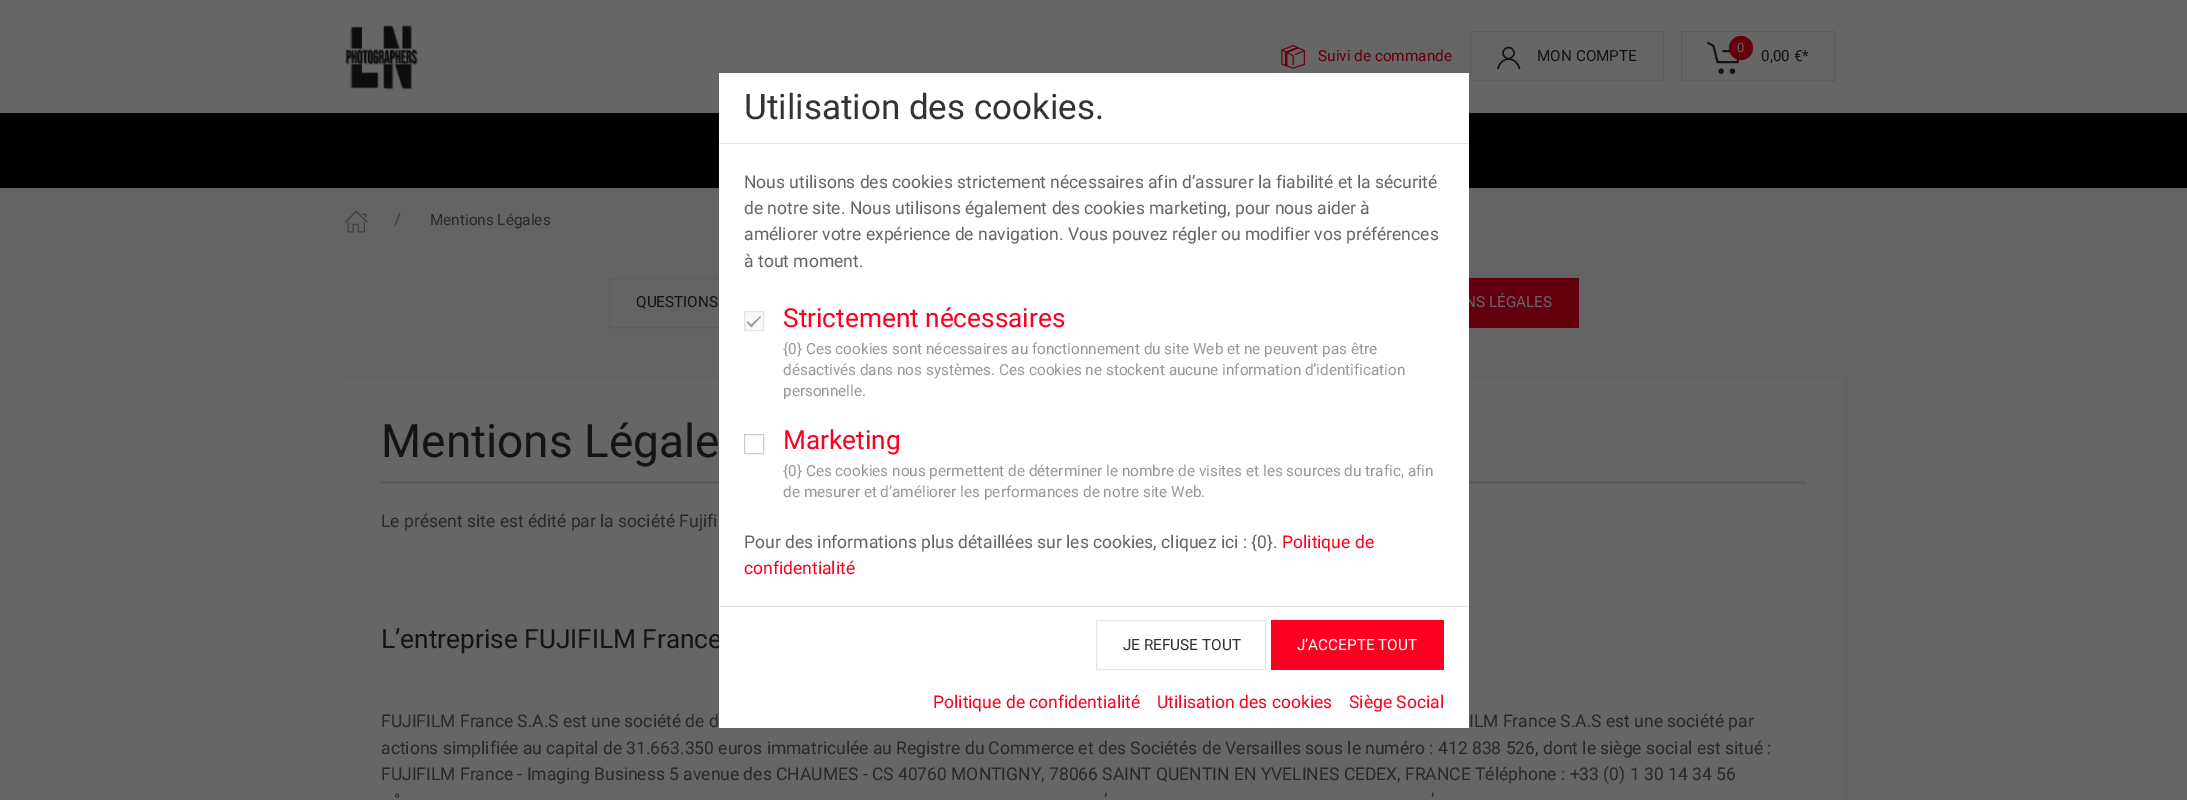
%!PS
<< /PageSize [2187 800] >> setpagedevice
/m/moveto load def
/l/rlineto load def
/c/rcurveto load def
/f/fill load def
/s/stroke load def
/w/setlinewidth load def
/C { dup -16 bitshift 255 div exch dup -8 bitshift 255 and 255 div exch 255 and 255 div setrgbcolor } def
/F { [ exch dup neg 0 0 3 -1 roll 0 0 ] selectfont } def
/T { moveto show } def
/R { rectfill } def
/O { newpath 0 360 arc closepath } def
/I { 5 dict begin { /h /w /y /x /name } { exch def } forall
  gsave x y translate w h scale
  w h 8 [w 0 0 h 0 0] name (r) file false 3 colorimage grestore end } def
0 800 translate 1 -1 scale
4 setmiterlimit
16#636363 C
0 0 2187 800 R
16#666666 C
0 0 2187 113 R
(1.rgb) 345 25 74 65 I
(2.rgb) 1281 45 24 24 I
/Roboto-Regular 15.3 F
16#64000D C
(Suivi de commande) 1318 61 T
16#5C5C5C C
1470.5 31.5 193 49 rectstroke
16#141414 C
1.4 w
1508.5 53 5.5 O s
1498 69 m 2.5 -13.5 19 -13 21.5 0 c s
(MON COMPTE) 1537 61 T
16#5C5C5C C
1 w
1681.5 31.5 153 49 rectstroke
16#141414 C
1.9 w
1707.5 42.5 m 6 3.5 l 4 16 l 20 0 l 3.5 -11 l -18.5 0 l s
16#64000D C
1741 48 12 O f
/Roboto-Regular 13 F
16#666666 C
(0) 1737 52 T
16#141414 C
1721.2 71.2 2.6 O f
1732.4 71.2 2.6 O f
/Roboto-Regular 15.3 F
(0,00 €*) 1761 61 T
16#000000 C
0 113 2187 75 R
(3.rgb) 344 210 24 23 I
/Roboto-Regular 17.5 F
16#3D3D3D C
(/) 394 225 T
/Roboto-Regular 15.3 F
16#292929 C
(Mentions Légales) 430 225 T
16#5C5C5C C
1 w
609.5 278.5 216 49 rectstroke
16#141414 C
(QUESTIONS) 636 307 T
16#64000D C
1469 278 110 50 R
16#666666 C
(NS LÉGALES) 1465 307 T
344 378 1500 422 R
16#5C5C5C C
381 481 1425 3 R
/Roboto-Regular 46 F
16#141414 C
(Mentions Légale) 381 457 T
/Roboto-Regular 17.5 F
16#292929 C
(Le présent site est édité par la société Fujifi) 381 527 T
/Roboto-Regular 26.25 F
16#141414 C
(L’entreprise FUJIFILM France) 381 648 T
/Roboto-Regular 17.5 F
16#292929 C
(FUJIFILM France S.A.S est une société de d) 381 727 T
(ILM France S.A.S est une société par) 1469 727 T
(actions simplifiée au capital de 31.663.350 euros immatriculée au Registre du Commerce et des Sociétés de Versailles sous le numéro : 412 838 526, dont le siège social est situé :) 381 754 T
(FUJIFILM France - Imaging Business 5 avenue des CHAUMES - CS 40760 MONTIGNY, 78066 SAINT QUENTIN EN YVELINES CEDEX, FRANCE Téléphone : +33 \(0\) 1 30 14 34 56) 381 780 T
(°) 394 806 T
(’) 1104 806 T
(’) 1431 806 T
16#FFFFFF C
719 73 750 655 R
16#E5E5E5 C
719 143 750 1 R
/Roboto-Regular 35 F
16#333333 C
(Utilisation des cookies.) 744 119 T
/Roboto-Regular 17.5 F
16#666666 C
(Nous utilisons des cookies strictement nécessaires afin d’assurer la fiabilité et la sécurité) 744 188 T
(de notre site. Nous utilisons également des cookies marketing, pour nous aider à) 744 214 T
(améliorer votre expérience de navigation. Vous pouvez régler ou modifier vos préférences) 744 240 T
(à tout moment.) 744 267 T
16#F8F8F8 C
745 312 18 18 R
(4.rgb) 746 316 15 12 I
16#E5E5E5 C
744.5 311.5 19 19 rectstroke
/Roboto-Regular 26.25 F
16#FB0021 C
(Strictement nécessaires) 783 327 T
/Roboto-Regular 15.3 F
16#999999 C
({0} Ces cookies sont nécessaires au fonctionnement du site Web et ne peuvent pas être) 783 354 T
(désactivés dans nos systèmes. Ces cookies ne stockent aucune information d’identification) 783 375 T
(personnelle.) 783 396 T
16#CCCCCC C
744.5 434.5 19 19 rectstroke
/Roboto-Regular 26.25 F
16#FB0021 C
(Marketing) 783 449 T
/Roboto-Regular 15.3 F
16#999999 C
({0} Ces cookies nous permettent de déterminer le nombre de visites et les sources du trafic, afin) 783 476 T
(de mesurer et d’améliorer les performances de notre site Web.) 783 497 T
/Roboto-Regular 17.5 F
16#666666 C
(Pour des informations plus détaillées sur les cookies, cliquez ici : {0}.) 744 548 T
16#FB0021 C
(Politique de) 1282 548 T
(confidentialité) 744 574 T
16#E5E5E5 C
719 606 750 1 R
1096.5 620.5 169 49 rectstroke
/Roboto-Regular 15.3 F
16#333333 C
(JE REFUSE TOUT) 1123 650 T
16#FB0021 C
1271 620 173 50 R
16#FFFFFF C
(J’ACCEPTE TOUT) 1297 650 T
/Roboto-Regular 17.5 F
16#FB0021 C
(Politique de confidentialité) 933 708 T
(Utilisation des cookies) 1157 708 T
(Siège Social) 1349 708 T
showpage
